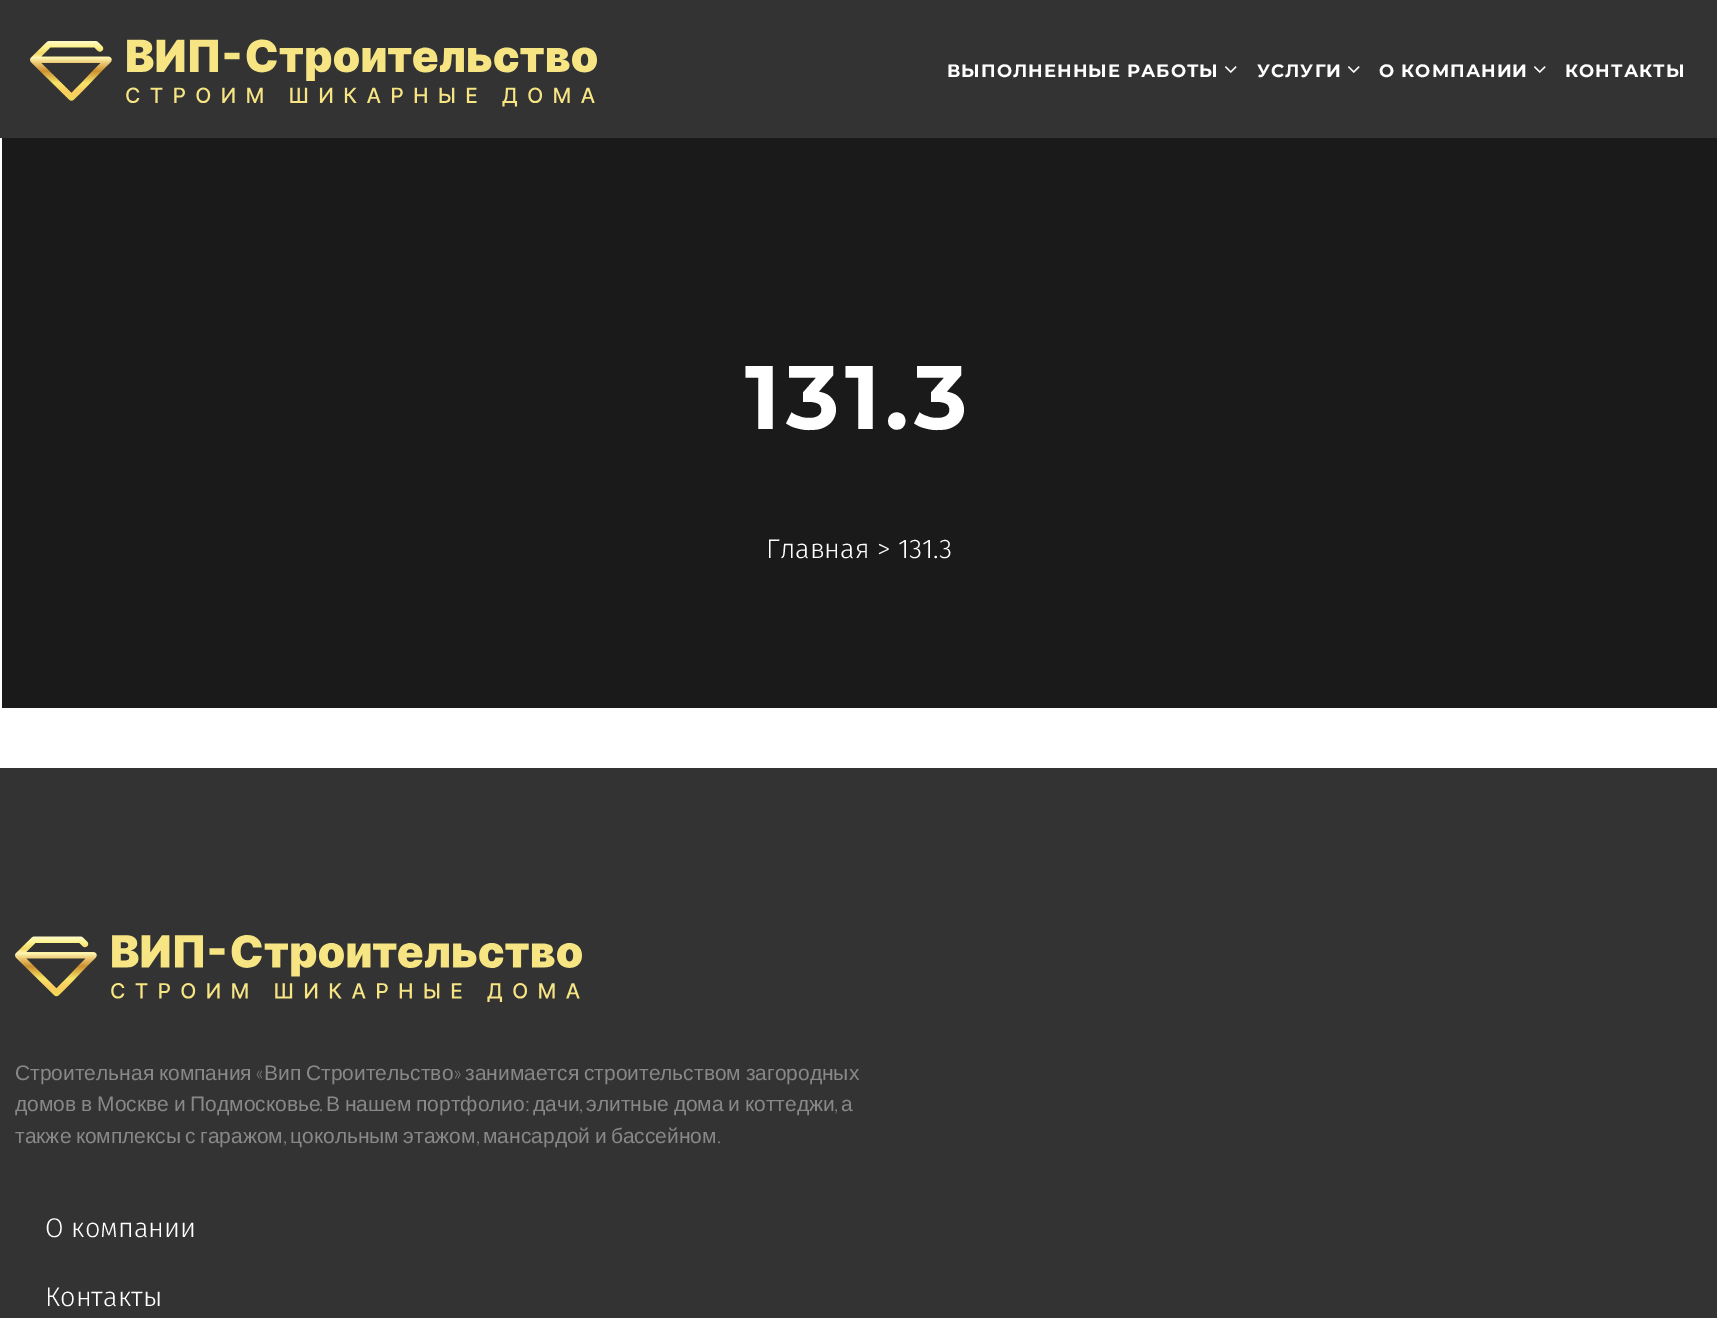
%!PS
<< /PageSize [1717 1318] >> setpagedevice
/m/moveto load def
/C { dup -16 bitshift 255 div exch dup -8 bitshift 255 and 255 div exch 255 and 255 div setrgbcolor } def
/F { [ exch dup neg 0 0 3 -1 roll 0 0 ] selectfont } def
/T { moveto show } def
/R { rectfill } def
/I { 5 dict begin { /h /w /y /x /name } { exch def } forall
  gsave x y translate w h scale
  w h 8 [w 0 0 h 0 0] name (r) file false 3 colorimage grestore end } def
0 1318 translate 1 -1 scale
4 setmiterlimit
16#FFFFFF C
0 0 1717 1318 R
16#333333 C
0 0 1717 138 R
(1.rgb) 30 39 567 68 I
/Montserrat-Thin 18 F
16#FFFFFF C
947 77 m 1 0 (ВЫПОЛНЕННЫЕ РАБОТЫ) ashow
(2.rgb) 1225 66 12 7 I
1257 77 m 1 0 (УСЛУГИ) ashow
(2.rgb) 1348 66 12 7 I
1379 77 m 1 0 (О КОМПАНИИ) ashow
(2.rgb) 1534 66 12 7 I
1565 77 m 1 0 (КОНТАКТЫ) ashow
16#1A1A1A C
2 138 1715 570 R
/Montserrat-Thin 90 F
16#FFFFFF C
745 429 m 5.5 0 (131.3) ashow
/FiraSans-Light 27 F
(Главная > 131.3) 766 558 T
16#333333 C
0 768 1717 550 R
(3.rgb) 15 935 567 67 I
/LiberationSans-Regular 21 F
16#888888 C
15 1080 m -1 0 32 (Строительная компания) widthshow
/Lato-Light 21 F
(«) 255 1080 T
/LiberationSans-Regular 21 F
264 1080 m -1 0 32 (Вип Строительство) widthshow
/Lato-Light 21 F
(») 453 1080 T
/LiberationSans-Regular 21 F
465 1080 m -1 0 32 (занимается строительством загородных) widthshow
15 1111 m -1 0 32 (домов в Москве и Подмосковье) widthshow
/Lato-Light 21 F
(.) 319 1111 T
/LiberationSans-Regular 21 F
326 1111 m -1 0 32 (В нашем портфолио) widthshow
/Lato-Light 21 F
(:) 525 1111 T
/LiberationSans-Regular 21 F
(дачи) 533 1111 T
/Lato-Light 21 F
(,) 579 1111 T
/LiberationSans-Regular 21 F
586 1111 m -1 0 32 (элитные дома и коттеджи) widthshow
/Lato-Light 21 F
(,) 834 1111 T
/LiberationSans-Regular 21 F
(а) 841 1111 T
15 1143 m -1.5 0 32 (также комплексы с гаражом) widthshow
/Lato-Light 21 F
(,) 283 1143 T
/LiberationSans-Regular 21 F
290 1143 m -1.5 0 32 (цокольным этажом) widthshow
/Lato-Light 21 F
(,) 476 1143 T
/LiberationSans-Regular 21 F
483 1143 m -1.5 0 32 (мансардой и бассейном) widthshow
/Lato-Light 21 F
(.) 717 1143 T
/FiraSans-Light 27 F
16#FFFFFF C
(О компании) 45 1237 T
(Контакты) 45 1306 T
showpage
